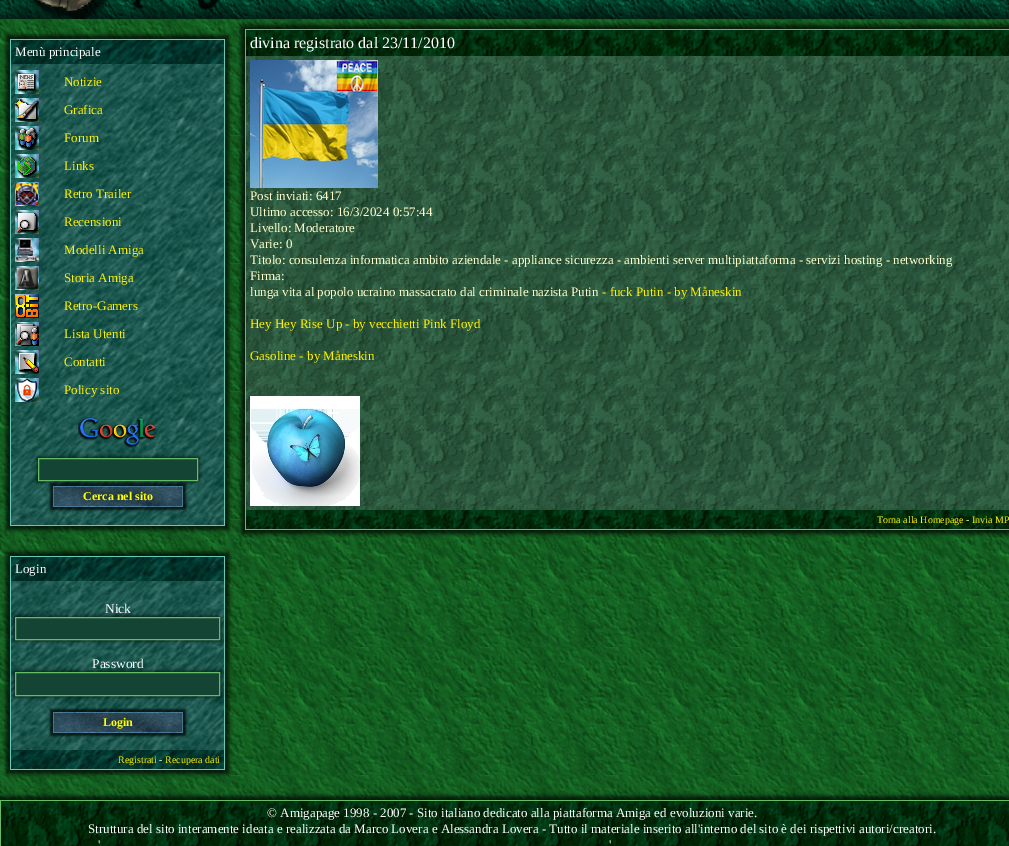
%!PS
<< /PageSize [1009 846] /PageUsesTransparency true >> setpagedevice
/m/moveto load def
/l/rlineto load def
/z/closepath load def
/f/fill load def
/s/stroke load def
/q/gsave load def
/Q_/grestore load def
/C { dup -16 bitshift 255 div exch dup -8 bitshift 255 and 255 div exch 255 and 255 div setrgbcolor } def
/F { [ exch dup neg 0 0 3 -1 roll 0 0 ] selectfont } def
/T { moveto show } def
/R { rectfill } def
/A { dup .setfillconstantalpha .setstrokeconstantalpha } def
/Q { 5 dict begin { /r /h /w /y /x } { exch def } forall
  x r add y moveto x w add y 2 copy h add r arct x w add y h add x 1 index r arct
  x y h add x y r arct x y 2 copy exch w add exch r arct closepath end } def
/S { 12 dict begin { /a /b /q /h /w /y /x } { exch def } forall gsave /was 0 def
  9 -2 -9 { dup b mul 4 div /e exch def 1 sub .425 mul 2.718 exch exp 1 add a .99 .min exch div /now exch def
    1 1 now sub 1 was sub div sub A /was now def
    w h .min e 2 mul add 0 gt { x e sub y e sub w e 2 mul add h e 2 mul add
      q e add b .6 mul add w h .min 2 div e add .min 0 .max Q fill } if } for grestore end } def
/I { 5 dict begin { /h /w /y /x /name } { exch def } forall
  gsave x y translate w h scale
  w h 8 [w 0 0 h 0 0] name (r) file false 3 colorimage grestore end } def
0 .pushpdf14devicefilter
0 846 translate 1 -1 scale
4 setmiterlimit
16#FFFFFF C
0 0 1009 846 R
(1.rgb) 0 19 1009 781 I
(2.rgb) 250 0 759 19 I
16#000000 C
241 25 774 509 0 2 .7 S
(3.rgb) 0 0 250 19 I
6 35 223 495 0 2 .7 S
16#66CABB C
10 39 215 1 R
224 39 1 487 R
10 525 215 1 R
10 39 1 487 R
(4.rgb) 11 40 213 24 I
/LiberationSerif-Regular 13 F
16#FFFFFF C
(Menù principale) 15 56 T
(5.rgb) 11 64 213 461 I
(6.rgb) 15 70 24 24 I
16#FFF000 C
(Notizie) 64 86 T
(7.rgb) 15 98 24 24 I
(Grafica) 64 114 T
(8.rgb) 15 126 24 24 I
(Forum) 64 142 T
(9.rgb) 15 154 24 24 I
(Links) 64 170 T
(10.rgb) 15 182 24 24 I
(Retro Trailer) 64 198 T
(11.rgb) 15 210 24 24 I
(Recensioni) 64 226 T
(12.rgb) 15 238 24 24 I
(Modelli Amiga) 64 254 T
(13.rgb) 15 266 24 24 I
(Storia Amiga) 64 282 T
(14.rgb) 15 294 24 24 I
(Retro-Gamers) 64 310 T
(15.rgb) 15 322 24 24 I
(Lista Utenti) 64 338 T
(16.rgb) 15 350 24 24 I
(Contatti) 64 366 T
(17.rgb) 15 378 24 24 I
(Policy sito) 64 394 T
(18.rgb) 78 417 78 31 I
16#000000 C
37 457 162 25 0 2 .7 S
16#144433 C
38.5 458.5 m 159 0 l 0 22 l -159 0 l z q f Q_
16#66BB66 C
s
16#000000 C
50 483 136 27 0 1 .7 S
(19.rgb) 53 486 130 21 I
/LiberationSerif-Bold 12 F
16#FFFF00 C
(Cerca nel sito) 83 500 T
16#000000 C
6 552 223 222 0 2 .7 S
16#66CABB C
10 556 215 1 R
224 556 1 214 R
10 769 215 1 R
10 556 1 214 R
(4.rgb) 11 557 213 24 I
/LiberationSerif-Regular 13 F
16#FFFFFF C
(Login) 15 573 T
(20.rgb) 11 581 213 169 I
/LiberationSerif-Regular 13.5 F
(Nick) 105 613 T
16#000000 C
14 616 207 25 0 2 .7 S
16#144433 C
15.5 617.5 m 204 0 l 0 22 l -204 0 l z q f Q_
16#66BB66 C
s
16#FFFFFF C
(Password) 92 668 T
16#000000 C
14 671 207 26 0 2 .7 S
16#144433 C
15.5 672.5 m 204 0 l 0 23 l -204 0 l z q f Q_
16#66BB66 C
s
16#000000 C
50 709 136 27 0 1 .7 S
(19.rgb) 53 712 130 21 I
/LiberationSerif-Bold 12 F
16#FFFF00 C
(Login) 103 726 T
(21.rgb) 11 750 213 19 I
/LiberationSerif-Regular 10 F
16#FFF000 C
(Registrati) 118 763 T
16#FFFFCC C
(-) 159 763 T
16#FFF000 C
(Recupera dati) 165 763 T
16#66BB66 C
245 29 764 1 R
245 529 764 1 R
245 29 1 501 R
(22.rgb) 246 30 763 26 I
/LiberationSerif-Regular 16 F
16#FFFFFF C
(divina registrato dal 23/11/2010) 250 48 T
(23.rgb) 246 56 763 454 I
(24.rgb) 250 60 128 128 I
/LiberationSerif-Regular 13 F
16#FFFFCC C
(Post inviati: 6417) 250 200 T
(Ultimo accesso: 16/3/2024 0:57:44) 250 216 T
(Livello: Moderatore) 250 232 T
(Varie: 0) 250 248 T
(Titolo: consulenza informatica ambito aziendale - appliance sicurezza - ambienti server multipiattaforma - servizi hosting - networking) 250 264 T
(Firma:) 250 280 T
(lunga vita al popolo ucraino massacrato dal criminale nazista Putin) 250 296 T
16#FFF000 C
(- fuck Putin - by Måneskin) 602 296 T
(Hey Hey Rise Up - by vecchietti Pink Floyd) 250 328 T
(Gasoline - by Måneskin) 250 360 T
(25.rgb) 250 396 110 110 I
(26.rgb) 246 510 763 19 I
/LiberationSerif-Regular 10 F
(Torna alla Homepage) 877 523 T
16#FFFFCC C
(-) 966 523 T
16#FFF000 C
(Invia MP) 972 523 T
16#000000 C
-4 796 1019 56 0 2 .7 S
16#66BB66 C
0 800 1009 1 R
0 800 1 46 R
(27.rgb) 1 801 1008 45 I
/LiberationSerif-Regular 13 F
16#FFFFFF C
(© Amigapage 1998 - 2007 - Sito italiano dedicato alla piattaforma Amiga ed evoluzioni varie.) 267 817 T
(Struttura del sito interamente ideata e realizzata da Marco Lovera e Alessandra Lovera - Tutto il materiale inserito all'interno del sito è dei rispettivi autori/creatori.) 88 833 T
(') 98 849 T
(') 609 849 T
.poppdf14devicefilter showpage
